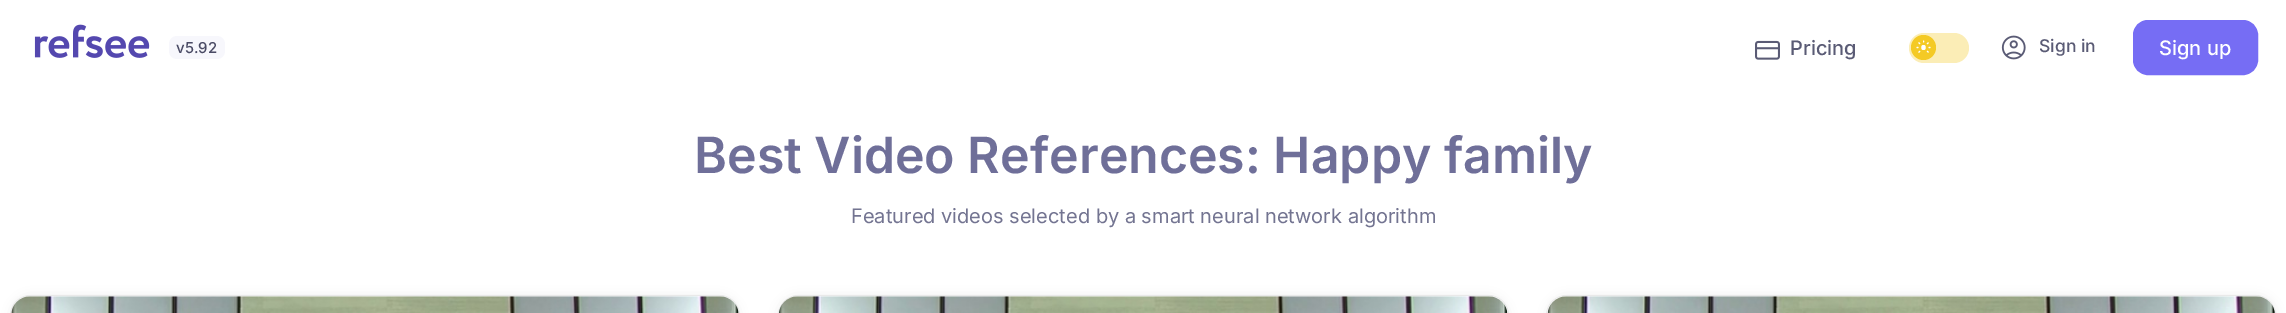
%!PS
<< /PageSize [2286 313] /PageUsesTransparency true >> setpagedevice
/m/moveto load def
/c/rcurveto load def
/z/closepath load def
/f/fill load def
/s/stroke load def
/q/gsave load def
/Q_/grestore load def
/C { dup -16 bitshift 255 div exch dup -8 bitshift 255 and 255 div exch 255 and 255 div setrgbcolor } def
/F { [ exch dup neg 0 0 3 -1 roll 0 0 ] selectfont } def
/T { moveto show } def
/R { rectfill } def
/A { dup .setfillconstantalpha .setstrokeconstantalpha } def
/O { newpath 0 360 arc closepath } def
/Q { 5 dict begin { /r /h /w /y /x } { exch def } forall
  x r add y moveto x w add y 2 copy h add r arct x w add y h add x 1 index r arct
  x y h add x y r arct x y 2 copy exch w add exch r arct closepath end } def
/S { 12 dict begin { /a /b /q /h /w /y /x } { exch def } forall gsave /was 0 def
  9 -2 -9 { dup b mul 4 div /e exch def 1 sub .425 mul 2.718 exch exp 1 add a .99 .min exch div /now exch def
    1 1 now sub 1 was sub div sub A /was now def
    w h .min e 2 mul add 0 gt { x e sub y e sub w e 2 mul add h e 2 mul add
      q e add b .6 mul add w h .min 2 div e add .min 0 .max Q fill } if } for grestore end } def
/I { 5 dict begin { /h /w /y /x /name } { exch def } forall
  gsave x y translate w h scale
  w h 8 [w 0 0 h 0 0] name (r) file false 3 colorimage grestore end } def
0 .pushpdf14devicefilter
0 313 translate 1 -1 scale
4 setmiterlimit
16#FFFFFF C
0 0 2286 313 R
(1.rgb) 34 24 116 34 I
16#F7F7FC C
169 36 56 23 8 Q f
/Inter-Medium 15 F
16#4A4B65 C
(v5.92) 176 53 T
(2.rgb) 1755 40 25 20 I
/Inter-Medium 20 F
16#5A5B75 C
(Pricing) 1790 55 T
16#FBEDB6 C
1909 33 60 30 15 Q f
16#F4CA25 C
1923.5 47.5 12.5 O f
16#FFFFFF C
1923.5 45 m -3 0 -3 5 0 5 c 3 0 3 -5 0 -5 c z 1920 51 m .5 .5 -.5 2 -1.5 1.5 c -.5 -.5 1 -2 1.5 -1.5 c z f
1918.5 47.5 m 0 1 -2 1 -2 0 c 0 -1 2 -1 2 0 c z 1920 44 m -.5 .5 -2 -1 -1.5 -1.5 c 1 -.5 2 1 1.5 1.5 c z 1923.5 42.5 m -.5 0 -.5 -2 0 -2 c 1 0 1 2 0 2 c z 1927 44 m -.5 -.5 1 -2 1.5 -1.5 c .5 .5 -.5 2 -1.5 1.5 c z f
1928.5 47.5 m 0 -1 2 -1 2 0 c 0 1 -2 1 -2 0 c z 1927 51 m 1 -.5 2 1 1.5 1.5 c -.5 .5 -2 -1 -1.5 -1.5 c z f
(3.rgb) 2001 35 25 25 I
/Inter-Medium 17.5 F
16#5A5B75 C
(Sign in) 2039 52 T
16#766DF4 C
2133.5 20.5 124 54 14.5 Q q f Q_
s
/Inter-Medium 20 F
16#FFFFFF C
(Sign up) 2159 55 T
/Inter-SemiBold 50 F
16#6F6F99 C
(Best Video References: Happy family) 694 173 T
/Inter-Regular 20 F
16#737491 C
(Featured videos selected by a smart neural network algorithm) 851 223 T
16#000000 C
14 299 722 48 16 6 .13 S
16#FFFFFF C
10.5 295.5 729 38 19.5 Q q f Q_
16#E9E9E9 C
s
(4.rgb) 11 296 728 17 I
16#000000 C
781 299 724 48 16 6 .13 S
16#FFFFFF C
778.5 295.5 730 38 19.5 Q q f Q_
16#E9E9E9 C
s
(5.rgb) 779 296 729 17 I
16#000000 C
1550 299 723 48 16 6 .13 S
16#FFFFFF C
1546.5 295.5 729 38 19.5 Q q f Q_
16#E9E9E9 C
s
(6.rgb) 1547 296 728 17 I
.poppdf14devicefilter showpage
